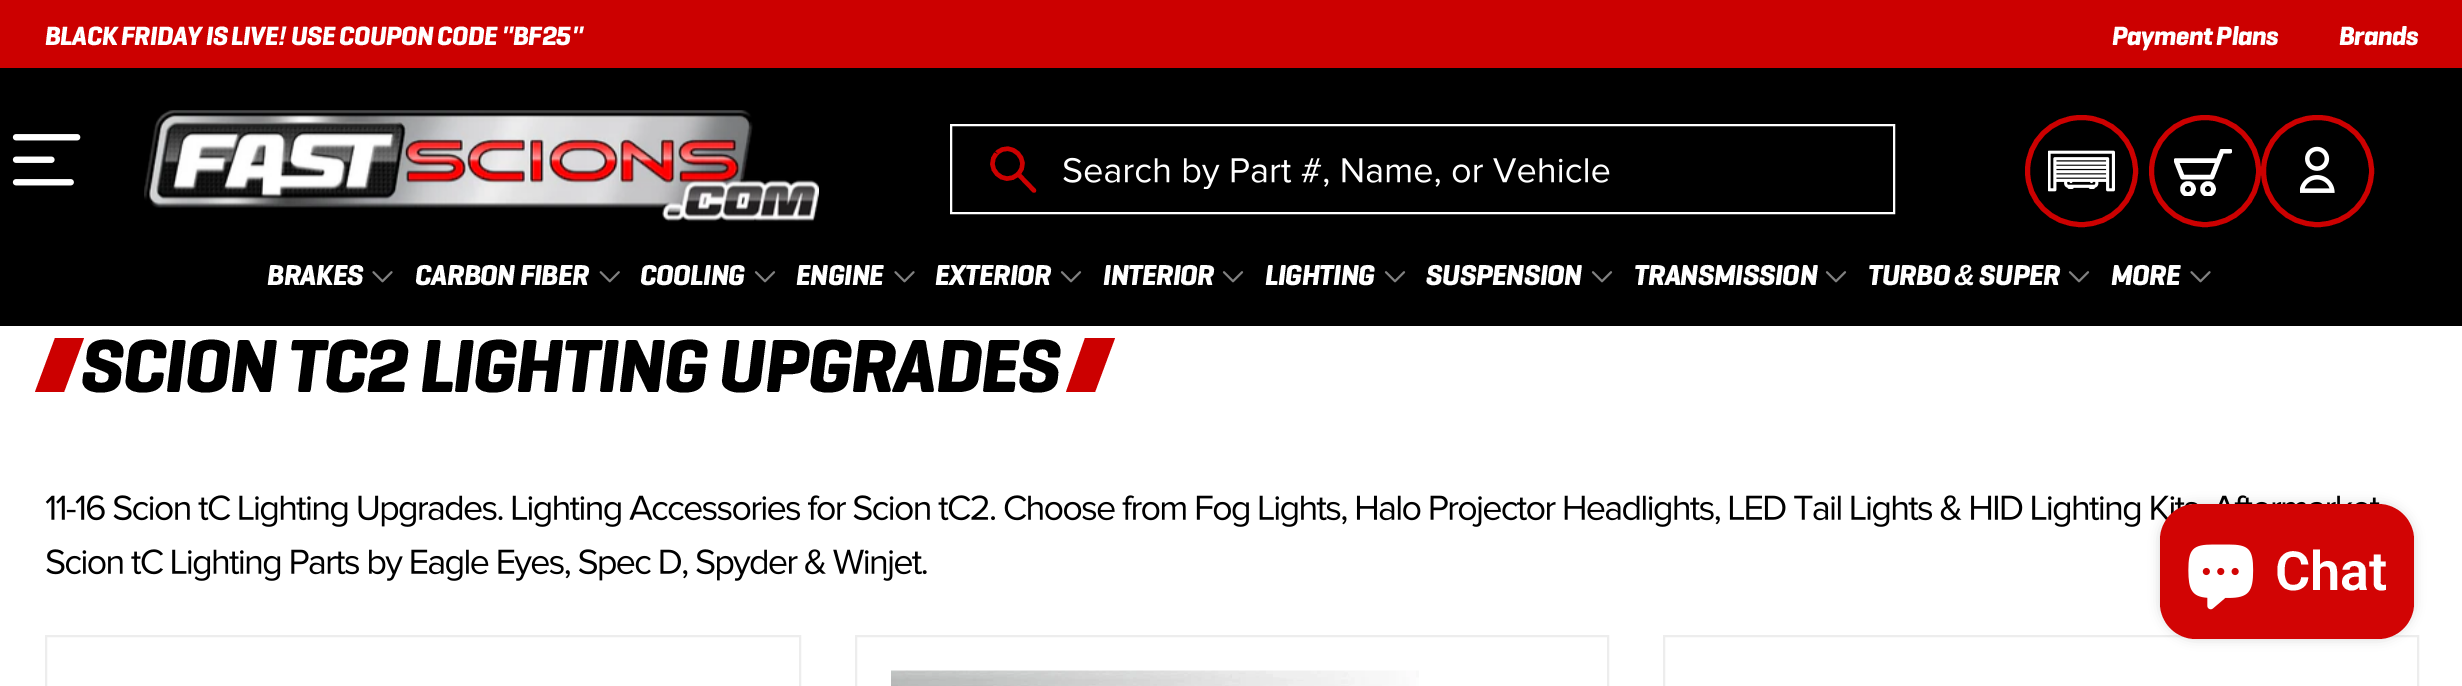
%!PS
<< /PageSize [2462 686] /PageUsesTransparency true >> setpagedevice
/m/moveto load def
/l/rlineto load def
/c/rcurveto load def
/z/closepath load def
/f/fill load def
/s/stroke load def
/q/gsave load def
/Q_/grestore load def
/w/setlinewidth load def
/C { dup -16 bitshift 255 div exch dup -8 bitshift 255 and 255 div exch 255 and 255 div setrgbcolor } def
/F { [ exch dup neg 0 0 3 -1 roll 0 0 ] selectfont } def
/T { moveto show } def
/R { rectfill } def
/A { dup .setfillconstantalpha .setstrokeconstantalpha } def
/O { newpath 0 360 arc closepath } def
/Q { 5 dict begin { /r /h /w /y /x } { exch def } forall
  x r add y moveto x w add y 2 copy h add r arct x w add y h add x 1 index r arct
  x y h add x y r arct x y 2 copy exch w add exch r arct closepath end } def
/S { 12 dict begin { /a /b /q /h /w /y /x } { exch def } forall gsave /was 0 def
  9 -2 -9 { dup b mul 4 div /e exch def 1 sub .425 mul 2.718 exch exp 1 add a .99 .min exch div /now exch def
    1 1 now sub 1 was sub div sub A /was now def
    w h .min e 2 mul add 0 gt { x e sub y e sub w e 2 mul add h e 2 mul add
      q e add b .6 mul add w h .min 2 div e add .min 0 .max Q fill } if } for grestore end } def
/I { 5 dict begin { /h /w /y /x /name } { exch def } forall
  gsave x y translate w h scale
  w h 8 [w 0 0 h 0 0] name (r) file false 3 colorimage grestore end } def
0 .pushpdf14devicefilter
0 686 translate 1 -1 scale
4 setmiterlimit
16#FFFFFF C
0 0 2462 686 R
16#CC0000 C
0 0 2462 68 R
/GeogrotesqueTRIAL-BoldItalic 27 F
16#FFFFFF C
45 45 m -.7 0 (BLACK FRIDAY IS LIVE) ashow
/LiberationSans-BoldItalic 27 F
278 45 m -.7 0 (!) ashow
/GeogrotesqueTRIAL-BoldItalic 27 F
291 45 m -.7 0 (USE COUPON CODE) ashow
/LiberationSans-BoldItalic 27 F
501 45 m -.7 0 (") ashow
/GeogrotesqueTRIAL-BoldItalic 27 F
513 45 m -.7 0 (BF25) ashow
/LiberationSans-BoldItalic 27 F
571 45 m -.7 0 (") ashow
/GeogrotesqueTRIAL-BoldItalic 27 F
2112 45 m -.7 0 (Payment Plans) ashow
2339 45 m -.7 0 (Brands) ashow
16#000000 C
0 68 2462 258 R
(1.rgb) 12 134 69 52 I
(2.rgb) 144 110 675 112 I
16#FFFFFF C
2 w
951 125 943 88 rectstroke
(3.rgb) 1063 157 547 32 I
16#CC0000 C
4.4 w
997 153 m 13.5 -13.5 35 7.5 21 21 c -14 14 -35 -7 -21 -21 c z s
1 setlinecap
1019.5 175.5 m 14.5 15 l s
5 w
0 setlinecap
2027.5 117.5 108 107 53.5 Q s
(4.rgb) 2048 150 67 42 I
2205 171 53.5 O s
q
2174 149 58 47 rectclip
16#FFFFFF C
4.5 w
1 setlinecap
1 setlinejoin
2230 151 m -8 0 l -10 26 l -29.5 0 l -6.5 -16.5 l 42 0 l s
0 setlinecap
0 setlinejoin
2188 189 5.5 O s
2208 189 5.5 O s
Q_
2263.5 117.5 108 107 53.5 Q s
(5.rgb) 2300 146 35 47 I
/GeogrotesqueTRIAL-BoldItalic 29.25 F
16#FFFFFF C
267 285 m -.75 0 (BRAKES) ashow
(6.rgb) 372 271 21 12 I
415 285 m -.75 0 (CARBON FIBER) ashow
(7.rgb) 599 271 21 12 I
640 285 m -.75 0 (COOLING) ashow
(8.rgb) 754 271 22 12 I
796 285 m -.75 0 (ENGINE) ashow
(6.rgb) 894 271 21 12 I
935 285 m -.75 0 (EXTERIOR) ashow
(8.rgb) 1060 271 22 12 I
1103 285 m -.75 0 (INTERIOR) ashow
(8.rgb) 1222 271 22 12 I
1265 285 m -.75 0 (LIGHTING) ashow
(8.rgb) 1384 271 22 12 I
1426 285 m -.75 0 (SUSPENSION) ashow
(8.rgb) 1591 271 22 12 I
1634 285 m -.75 0 (TRANSMISSION) ashow
(8.rgb) 1825 271 22 12 I
1868 285 m -.75 0 (TURBO) ashow
/LiberationSans-BoldItalic 29.25 F
1954 285 m -.75 0 (&) ashow
/GeogrotesqueTRIAL-BoldItalic 29.25 F
1979 285 m -.75 0 (SUPER) ashow
(8.rgb) 2068 271 22 12 I
2111 285 m -.75 0 (MORE) ashow
(6.rgb) 2190 271 21 12 I
/GeogrotesqueTRIAL-BoldItalic 76.5 F
16#000000 C
81 392 m -1.9 0 (SCION TC2 LIGHTING UPGRADES) ashow
16#CC0000 C
55 338 m 29 0 l -20 54 l -29 0 l z f
1085 338 m 30 0 l -20 54 l -29 0 l z f
(9.rgb) 45 495 2335 32 I
(10.rgb) 46 549 881 32 I
16#EDEDED C
2 w
46 636 754 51 rectstroke
856 636 752 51 rectstroke
(11.rgb) 891 670 528 16 I
1664 636 754 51 rectstroke
16#000000 C
2160 504 254 135 36 5.5 .15 S
16#D20404 C
2160 504 254 135 36 Q f
(12.rgb) 2188 544 66 66 I
/Roboto-SemiBold 54 F
16#FFFFFF C
(Chat) 2275 590 T
.poppdf14devicefilter showpage
